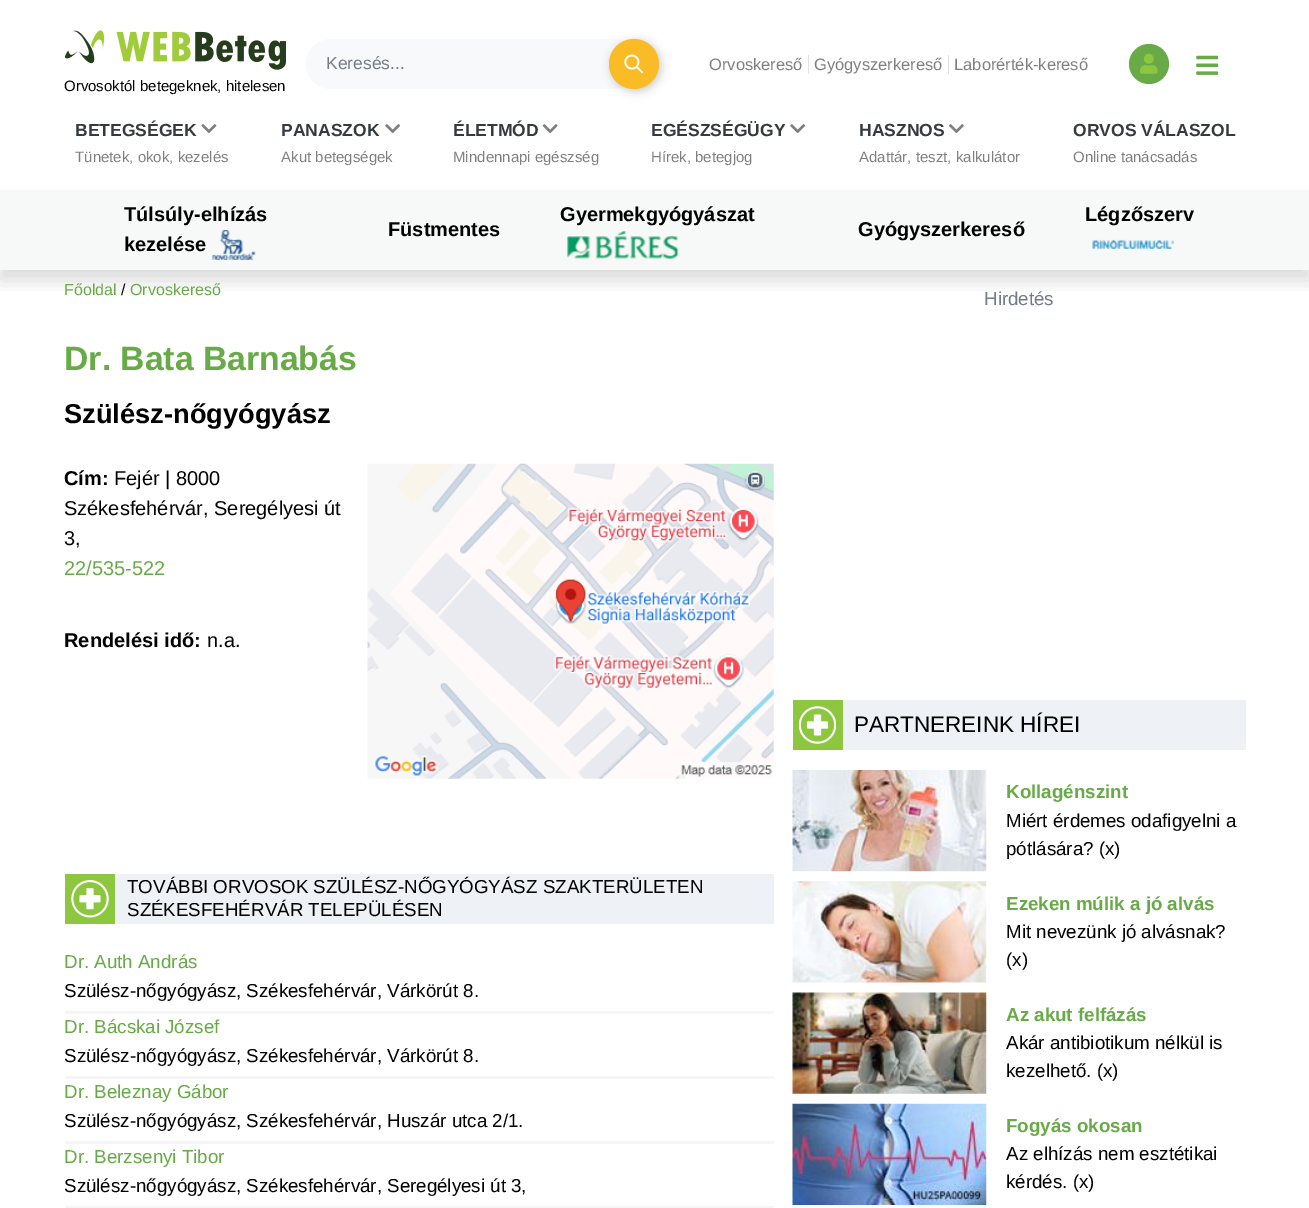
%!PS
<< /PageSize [1309 1208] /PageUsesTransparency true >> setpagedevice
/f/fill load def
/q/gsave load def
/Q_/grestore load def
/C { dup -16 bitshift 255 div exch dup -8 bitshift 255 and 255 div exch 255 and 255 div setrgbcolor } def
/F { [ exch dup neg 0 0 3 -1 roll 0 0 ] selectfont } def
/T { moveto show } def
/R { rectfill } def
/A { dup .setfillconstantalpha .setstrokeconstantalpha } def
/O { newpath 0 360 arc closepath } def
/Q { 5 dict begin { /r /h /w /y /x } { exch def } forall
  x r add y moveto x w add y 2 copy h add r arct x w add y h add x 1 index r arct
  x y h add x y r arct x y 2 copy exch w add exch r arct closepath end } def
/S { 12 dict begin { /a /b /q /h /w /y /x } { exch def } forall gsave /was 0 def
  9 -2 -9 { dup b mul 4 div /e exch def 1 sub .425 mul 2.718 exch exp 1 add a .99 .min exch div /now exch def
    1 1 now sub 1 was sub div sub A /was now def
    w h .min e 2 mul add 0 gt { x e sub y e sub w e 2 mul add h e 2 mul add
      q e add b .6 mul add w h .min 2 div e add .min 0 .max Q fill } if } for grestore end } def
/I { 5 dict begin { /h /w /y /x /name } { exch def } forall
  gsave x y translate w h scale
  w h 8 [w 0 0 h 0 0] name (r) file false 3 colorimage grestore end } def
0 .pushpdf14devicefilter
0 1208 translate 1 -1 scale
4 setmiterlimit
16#FFFFFF C
0 0 1309 1208 R
q
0 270 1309 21 rectclip
16#000000 C
0 10 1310 270 0 10 .15 S
Q_
16#F8F9FA C
306 39 333 50 25 Q f
/LiberationSans-Regular 17.5 F
16#757B8A C
(Keresés...) 326 69 T
16#000000 C
611 41 50 50 25 4.5 .2 S
16#F9BC27 C
634 64 25 O f
(1.rgb) 624 54 20 20 I
/LiberationSans-Regular 16.5 F
16#808080 C
(Orvoskereső) 709 70 T
16#DEE2E6 C
808 55 1 19 R
16#808080 C
(Gyógyszerkereső) 814 70 T
16#DEE2E6 C
948 55 1 19 R
16#808080 C
(Laborérték-kereső) 954 70 T
16#67AA47 C
1149 64 20 O f
(2.rgb) 1140 53 18 21 I
(3.rgb) 1196 55 23 20 I
(4.rgb) 65 30 221 40 I
/LiberationSans-Regular 15 F
16#010101 C
(Orvosoktól betegeknek, hitelesen) 64 91 T
/LiberationSans-Bold 17.5 F
16#343A40 C
(BETEGSÉGEK) 75 136 T
(5.rgb) 201 124 16 9 I
/LiberationSans-Regular 15 F
16#808080 C
(Tünetek, okok, kezelés) 75 162 T
/LiberationSans-Bold 17.5 F
16#343A40 C
(PANASZOK) 281 136 T
(6.rgb) 385 124 15 9 I
/LiberationSans-Regular 15 F
16#808080 C
(Akut betegségek) 281 162 T
/LiberationSans-Bold 17.5 F
16#343A40 C
(ÉLETMÓD) 453 136 T
(7.rgb) 542 124 16 9 I
/LiberationSans-Regular 15 F
16#808080 C
(Mindennapi egészség) 453 162 T
/LiberationSans-Bold 17.5 F
16#343A40 C
(EGÉSZSÉGÜGY) 651 136 T
(6.rgb) 790 124 15 9 I
/LiberationSans-Regular 15 F
16#808080 C
(Hírek, betegjog) 651 162 T
/LiberationSans-Bold 17.5 F
16#343A40 C
(HASZNOS) 859 136 T
(8.rgb) 949 124 15 9 I
/LiberationSans-Regular 15 F
16#808080 C
(Adattár, teszt, kalkulátor) 859 162 T
/LiberationSans-Bold 17.5 F
16#343A40 C
(ORVOS VÁLASZOL) 1073 136 T
/LiberationSans-Regular 15 F
16#808080 C
(Online tanácsadás) 1073 162 T
16#F7F9F9 C
0 190 1309 80 R
/LiberationSans-Bold 20 F
16#010101 C
(Túlsúly-elhízás) 124 221 T
(kezelése) 124 251 T
(9.rgb) 212 230 44 30 I
(Gyermekgyógyászat) 560 221 T
(10.rgb) 567 231 112 28 I
(Légzőszerv) 1085 221 T
(11.rgb) 1092 239 83 10 I
(Füstmentes) 388 236 T
(Gyógyszerkereső) 858 236 T
/LiberationSans-Regular 16 F
16#67AA47 C
(Főoldal) 64 295 T
16#010101 C
(/) 121 295 T
16#67AA47 C
(Orvoskereső) 130 295 T
/LiberationSans-Bold 33.75 F
(Dr. Bata Barnabás) 64 370 T
/LiberationSans-Bold 27.25 F
16#010101 C
(Szülész-nőgyógyász) 64 423 T
/LiberationSans-Bold 20 F
(Cím:) 64 485 T
/LiberationSans-Regular 20 F
(Fejér | 8000) 114 485 T
(Székesfehérvár, Seregélyesi út) 64 515 T
(3,) 64 545 T
16#67AA47 C
(22/535-522) 64 575 T
/LiberationSans-Bold 20 F
16#010101 C
(Rendelési idő:) 64 647 T
/LiberationSans-Regular 20 F
(n.a.) 207 647 T
(12.rgb) 367 463 407 316 I
16#8DC63F C
65 874 50 50 R
(13.rgb) 71 880 38 38 I
16#EEF2F6 C
115 874 659 50 R
/LiberationSans-Regular 18.75 F
16#010101 C
(TOVÁBBI ORVOSOK SZÜLÉSZ-NŐGYÓGYÁSZ SZAKTERÜLETEN) 127 893 T
(SZÉKESFEHÉRVÁR TELEPÜLÉSEN) 127 916 T
16#67AA47 C
(Dr. Auth András) 64 968 T
16#F6F6F6 C
65 1011 709 3 R
16#010101 C
(Szülész-nőgyógyász, Székesfehérvár, Várkörút 8.) 64 997 T
16#67AA47 C
(Dr. Bácskai József) 64 1033 T
16#F6F6F6 C
65 1076 709 3 R
16#010101 C
(Szülész-nőgyógyász, Székesfehérvár, Várkörút 8.) 64 1062 T
16#67AA47 C
(Dr. Beleznay Gábor) 64 1098 T
16#F6F6F6 C
65 1141 709 3 R
16#010101 C
(Szülész-nőgyógyász, Székesfehérvár, Huszár utca 2/1.) 64 1127 T
16#67AA47 C
(Dr. Berzsenyi Tibor) 64 1163 T
16#F6F6F6 C
65 1206 709 2 R
16#010101 C
(Szülész-nőgyógyász, Székesfehérvár, Seregélyesi út 3,) 64 1192 T
16#757B8A C
(Hirdetés) 984 305 T
16#8DC63F C
793 700 50 50 R
(14.rgb) 799 706 37 38 I
16#EEF2F6 C
843 700 403 50 R
/LiberationSans-Regular 22.5 F
16#010101 C
(PARTNEREINK HÍREI) 854 732 T
(15.rgb) 792 770 195 102 I
/LiberationSans-Bold 18.75 F
16#67AA47 C
(Kollagénszint) 1006 798 T
/LiberationSans-Regular 18.75 F
16#010101 C
(Miért érdemes odafigyelni a) 1006 827 T
(pótlására? \(x\)) 1006 855 T
(16.rgb) 792 881 195 102 I
/LiberationSans-Bold 18.75 F
16#67AA47 C
(Ezeken múlik a jó alvás) 1006 910 T
/LiberationSans-Regular 18.75 F
16#010101 C
(Mit nevezünk jó alvásnak?) 1006 938 T
(\(x\)) 1006 966 T
(17.rgb) 792 992 195 102 I
/LiberationSans-Bold 18.75 F
16#67AA47 C
(Az akut felfázás) 1006 1021 T
/LiberationSans-Regular 18.75 F
16#010101 C
(Akár antibiotikum nélkül is) 1006 1049 T
(kezelhető. \(x\)) 1006 1077 T
(18.rgb) 792 1103 195 102 I
/LiberationSans-Bold 18.75 F
16#67AA47 C
(Fogyás okosan) 1006 1132 T
/LiberationSans-Regular 18.75 F
16#010101 C
(Az elhízás nem esztétikai) 1006 1160 T
(kérdés. \(x\)) 1006 1188 T
.poppdf14devicefilter showpage
